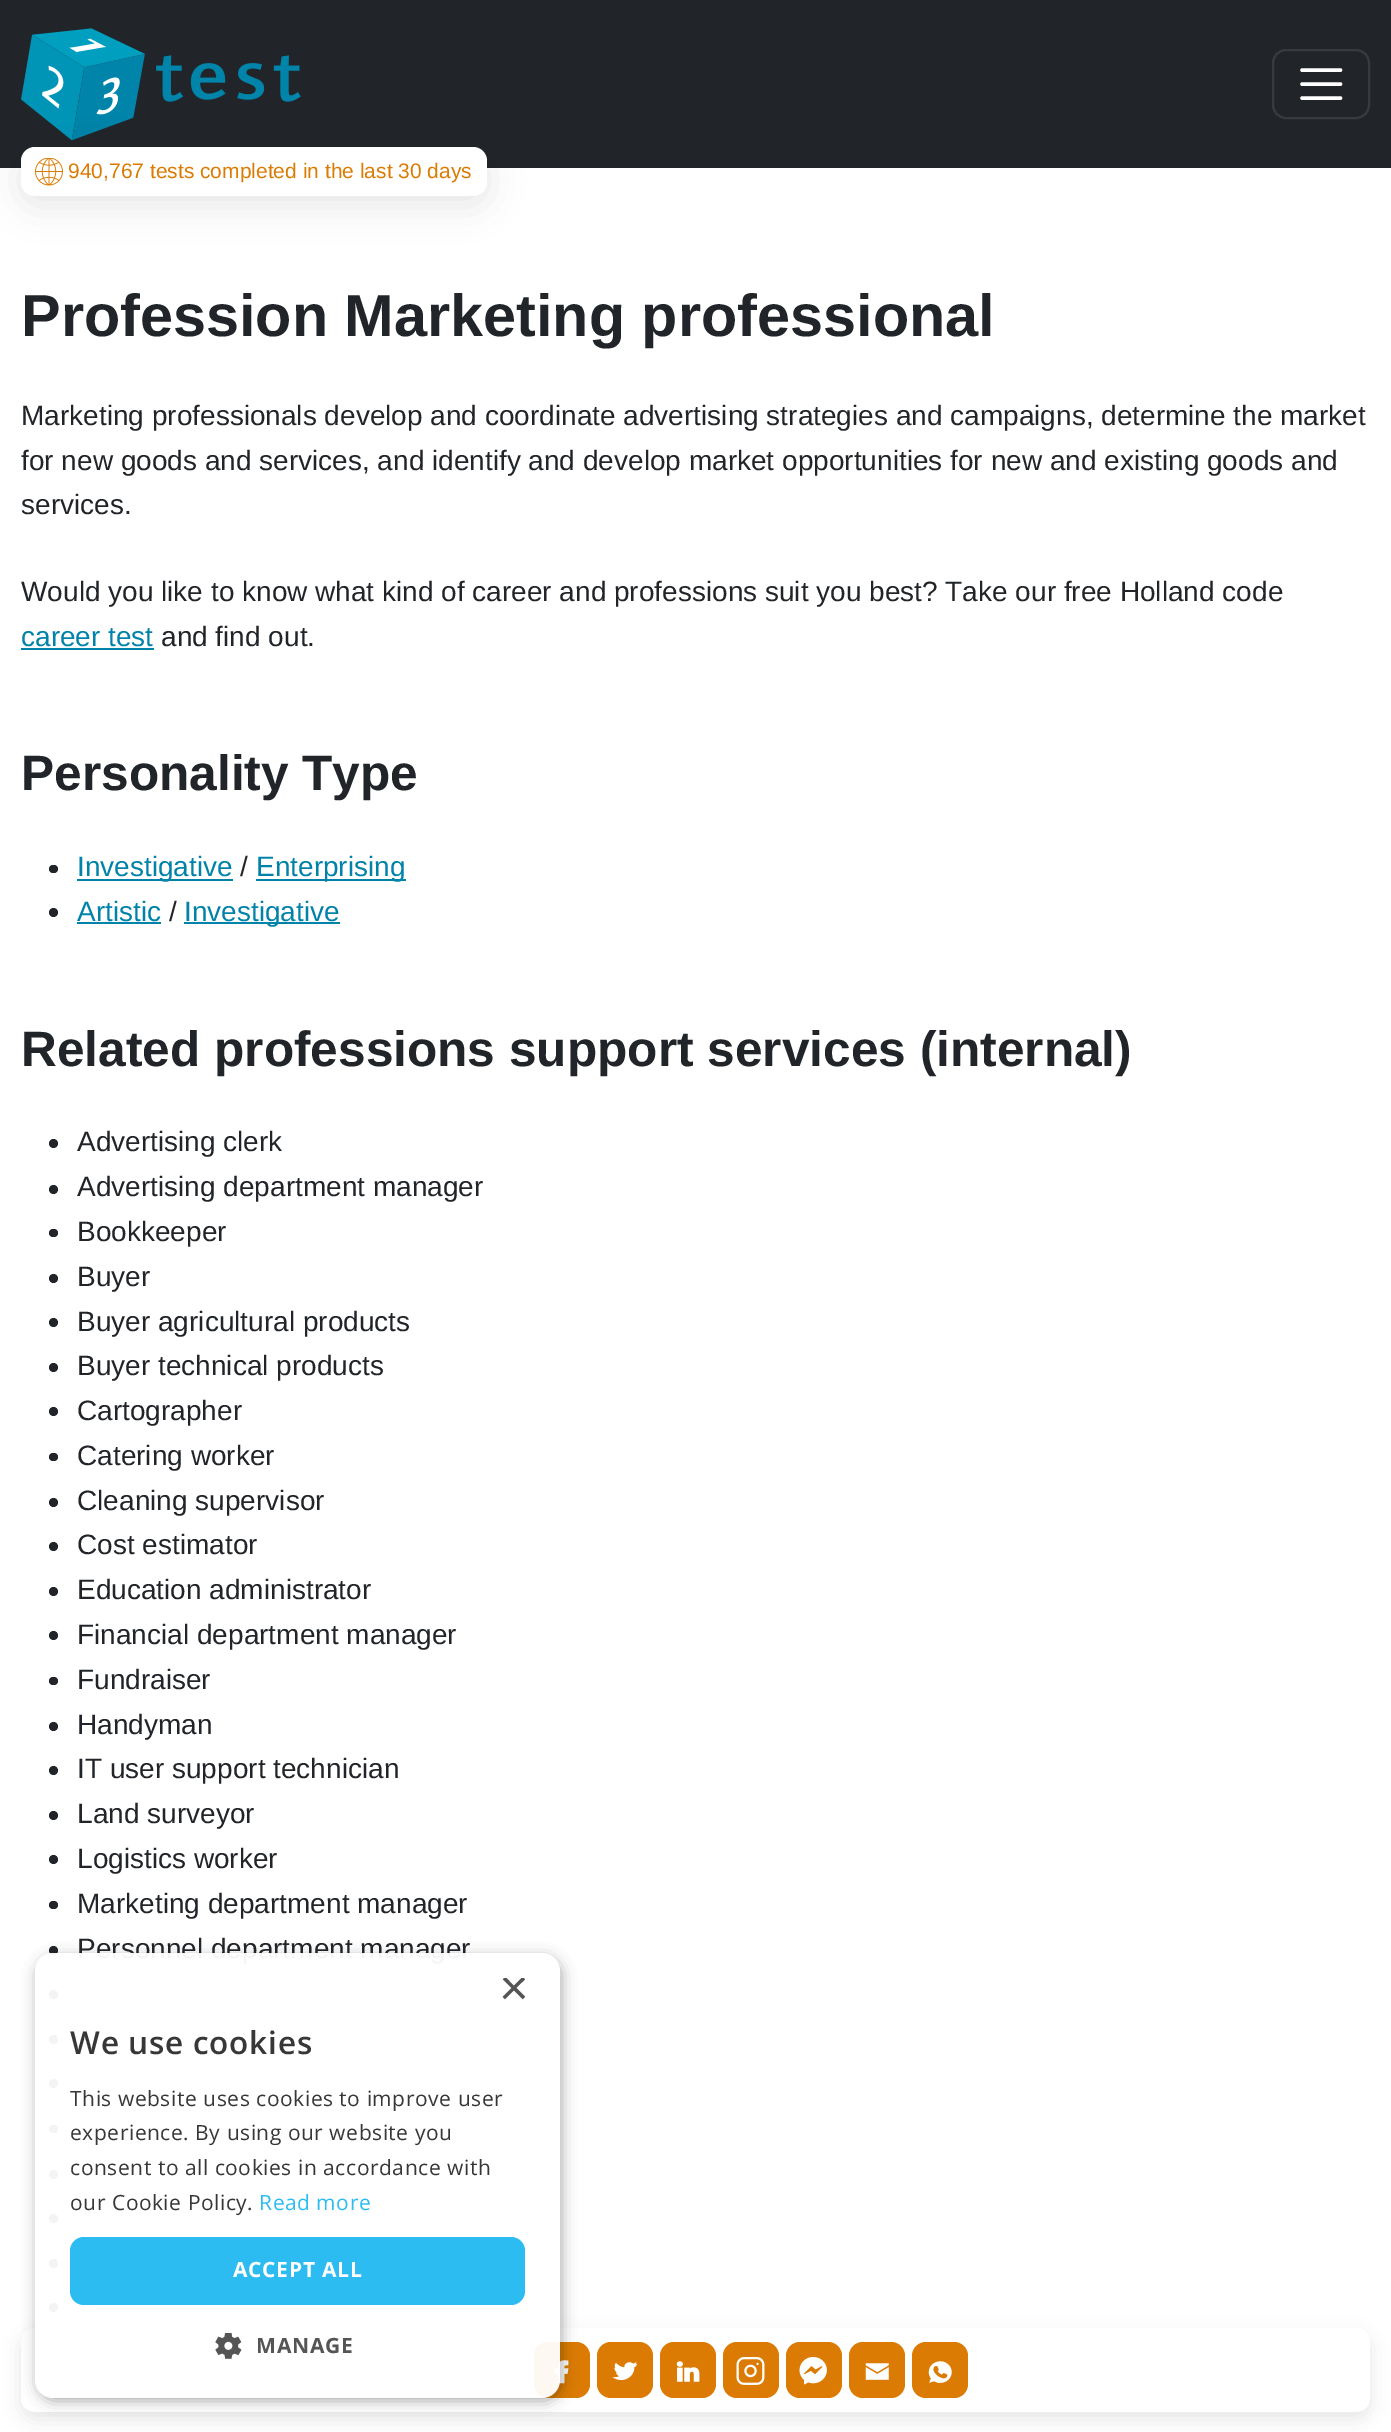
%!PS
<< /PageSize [1391 2432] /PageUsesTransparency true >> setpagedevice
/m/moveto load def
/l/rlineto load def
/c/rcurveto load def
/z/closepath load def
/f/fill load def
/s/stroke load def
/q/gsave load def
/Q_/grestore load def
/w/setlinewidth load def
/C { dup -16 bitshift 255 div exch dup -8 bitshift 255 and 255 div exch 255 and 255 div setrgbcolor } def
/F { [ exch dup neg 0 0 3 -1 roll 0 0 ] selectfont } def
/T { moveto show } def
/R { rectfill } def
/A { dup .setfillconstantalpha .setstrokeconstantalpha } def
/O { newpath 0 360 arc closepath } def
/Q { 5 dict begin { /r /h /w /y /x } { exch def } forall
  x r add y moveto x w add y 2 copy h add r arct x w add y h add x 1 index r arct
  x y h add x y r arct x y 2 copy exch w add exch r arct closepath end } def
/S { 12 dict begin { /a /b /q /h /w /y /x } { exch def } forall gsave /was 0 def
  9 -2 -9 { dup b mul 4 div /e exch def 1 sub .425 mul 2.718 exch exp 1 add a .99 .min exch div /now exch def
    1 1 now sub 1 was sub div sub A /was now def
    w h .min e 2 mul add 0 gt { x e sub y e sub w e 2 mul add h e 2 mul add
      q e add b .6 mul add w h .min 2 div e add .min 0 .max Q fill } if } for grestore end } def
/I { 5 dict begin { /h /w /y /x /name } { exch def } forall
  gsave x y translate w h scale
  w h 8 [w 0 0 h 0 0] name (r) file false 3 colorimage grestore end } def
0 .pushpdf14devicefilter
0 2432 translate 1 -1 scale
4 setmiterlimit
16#FFFFFF C
0 0 1391 2432 R
16#212529 C
0 0 1391 168 R
(1.rgb) 21 28 280 113 I
16#373B3E C
2 w
1273 50 96 68 13 Q s
16#FFFFFF C
3.5 w
1 setlinecap
1302 70 m 38.5 0 l 1302 84 m 38.5 0 l 1302 98 m 38.5 0 l s
16#000000 C
21 156 466 49 14 17.5 .1 S
16#FFFFFF C
21 147 466 49 14 Q f
(2.rgb) 35 158 28 28 I
/LiberationSans-Regular 21 F
16#DB7B03 C
(940,767 tests completed in the last 30 days) 68 178 T
/LiberationSans-Bold 59.4 F
16#212529 C
(Profession Marketing professional) 21 336 T
/LiberationSans-Regular 28 F
(Marketing professionals develop and coordinate advertising strategies and campaigns, determine the market) 21 425 T
(for new goods and services, and identify and develop market opportunities for new and existing goods and) 21 470 T
(services.) 21 514 T
(Would you like to know what kind of career and professions suit you best? Take our free Holland code) 21 601 T
16#0182A9 C
(career test) 21 646 T
21 648 133 2 R
16#212529 C
(and find out.) 161 646 T
/LiberationSans-Bold 49.6 F
(Personality Type) 21 790 T
49 865 9 8 4 Q f
16#0182A9 C
77 879 156 2 R
/LiberationSans-Regular 28 F
(Investigative) 77 876 T
16#212529 C
(/) 240 876 T
16#0182A9 C
256 879 150 2 R
(Enterprising) 256 876 T
16#212529 C
53.5 912.5 4.5 O f
16#0182A9 C
(Artistic) 77 921 T
77 922 84 2 R
16#212529 C
(/) 169 921 T
16#0182A9 C
184 922 156 2 R
(Investigative) 184 921 T
/LiberationSans-Bold 49.6 F
16#212529 C
(Related professions support services \(internal\)) 21 1066 T
53.5 1143.5 4.5 O f
/LiberationSans-Regular 28 F
(Advertising clerk) 77 1151 T
53.5 1189.5 4.5 O f
(Advertising department manager) 77 1196 T
49 1229 9 8 4 Q f
(Bookkeeper) 77 1241 T
53.5 1278.5 4.5 O f
(Buyer) 77 1286 T
53.5 1322.5 4.5 O f
(Buyer agricultural products) 77 1331 T
53.5 1367.5 4.5 O f
(Buyer technical products) 77 1375 T
53.5 1411.5 4.5 O f
(Cartographer) 77 1420 T
49 1453 9 8 4 Q f
(Catering worker) 77 1465 T
53.5 1502.5 4.5 O f
(Cleaning supervisor) 77 1510 T
53.5 1546.5 4.5 O f
(Cost estimator) 77 1554 T
53.5 1591.5 4.5 O f
(Education administrator) 77 1599 T
53.5 1635.5 4.5 O f
(Financial department manager) 77 1644 T
49 1677 9 8 4 Q f
(Fundraiser) 77 1689 T
53.5 1726.5 4.5 O f
(Handyman) 77 1734 T
53.5 1770.5 4.5 O f
(IT user support technician) 77 1778 T
53.5 1815.5 4.5 O f
(Land surveyor) 77 1823 T
53.5 1859.5 4.5 O f
(Logistics worker) 77 1868 T
49 1901 9 8 4 Q f
(Marketing department manager) 77 1913 T
53.5 1950.5 4.5 O f
(Personnel department manager) 77 1958 T
53.5 1994.5 4.5 O f
53.5 2039.5 4.5 O f
53.5 2083.5 4.5 O f
49 2125 9 8 4 Q f
53.5 2174.5 4.5 O f
53.5 2218.5 4.5 O f
53.5 2263.5 4.5 O f
53.5 2307.5 4.5 O f
16#000000 C
21 2335 1349 84 14 9 .1 S
16#FFFFFF C
21 2328 1349 84 14 Q f
16#DB7B03 C
534 2342 56 56 14 Q f
(3.rgb) 554 2360 15 24 I
597 2342 56 56 14 Q f
(4.rgb) 612 2361 26 20 I
660 2342 56 56 14 Q f
(5.rgb) 676 2361 24 21 I
723 2342 56 56 14 Q f
(6.rgb) 736 2357 29 28 I
786 2342 56 56 14 Q f
(7.rgb) 799 2357 28 28 I
849 2342 56 56 14 Q f
(8.rgb) 865 2363 24 17 I
912 2342 56 56 14 Q f
(9.rgb) 928 2361 24 22 I
q
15 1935 m 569 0 l 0 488 l -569 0 l z 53 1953 m 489 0 l 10 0 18 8 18 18 c 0 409 l 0 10 -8 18 -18 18 c -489 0 l -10 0 -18 -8 -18 -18 c 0 -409 l 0 -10 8 -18 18 -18 c z eoclip newpath
16#000000 C
37 1957 525 444 18 7 .33 S
Q_
0.95 A
16#FFFFFF C
35 1953 525 445 18 Q f
q
499 1978 26 26 rectclip
/LiberationSans-Regular 51 F
1 A
16#555555 C
(×) 499 2005 T
Q_
/OpenSans-SemiBold 31.5 F
1 A
16#373737 C
70 2054 m .75 0 (We use cookies) ashow
/OpenSans-Regular 21 F
70 2106 m .55 0 (This website uses cookies to improve user) ashow
70 2140 m .55 0 (experience. By using our website you) ashow
70 2175 m .55 0 (consent to all cookies in accordance with) ashow
70 2210 m .55 0 (our Cookie Policy.) ashow
16#2DBCF1 C
259 2210 m .55 0 (Read more) ashow
0.95 A
16#22B8F0 C
70 2237 455 68 14 Q f
/OpenSans-Bold 21 F
1 A
16#FFFFFF C
233 2277 m .75 0 (ACCEPT ALL) ashow
(10.rgb) 215 2333 27 26 I
16#555555 C
256 2353 m .75 0 (MANAGE) ashow
.poppdf14devicefilter showpage
